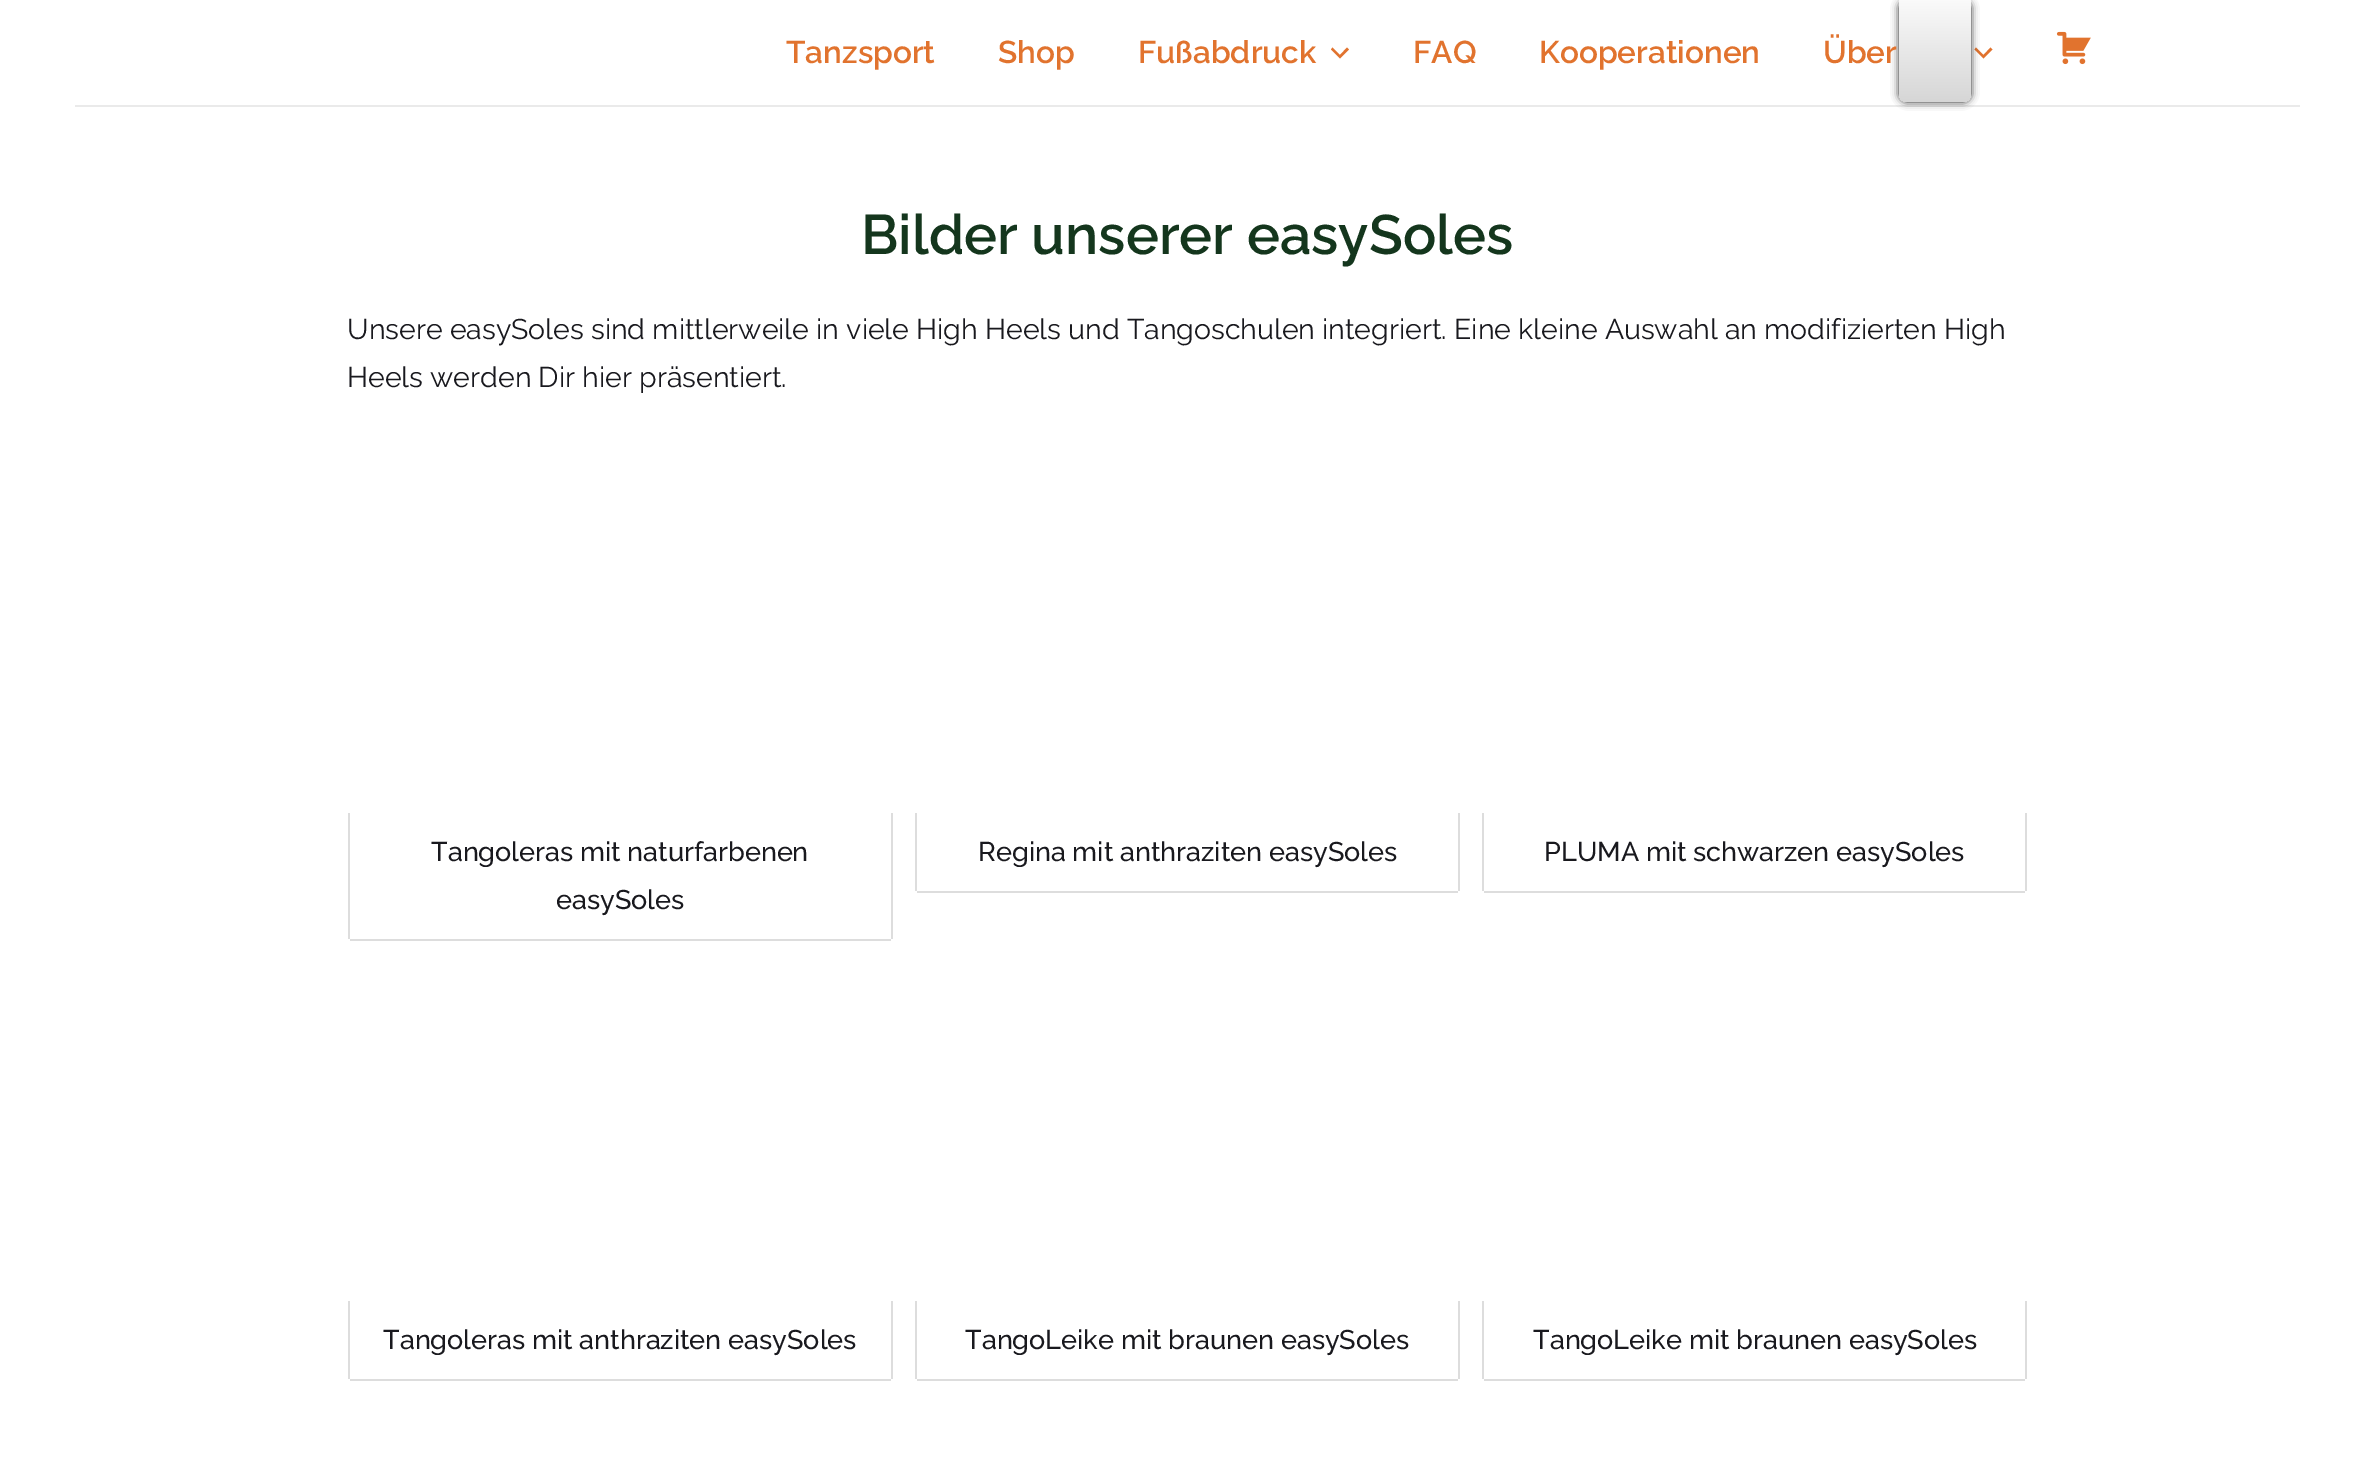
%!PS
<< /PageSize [2374 1460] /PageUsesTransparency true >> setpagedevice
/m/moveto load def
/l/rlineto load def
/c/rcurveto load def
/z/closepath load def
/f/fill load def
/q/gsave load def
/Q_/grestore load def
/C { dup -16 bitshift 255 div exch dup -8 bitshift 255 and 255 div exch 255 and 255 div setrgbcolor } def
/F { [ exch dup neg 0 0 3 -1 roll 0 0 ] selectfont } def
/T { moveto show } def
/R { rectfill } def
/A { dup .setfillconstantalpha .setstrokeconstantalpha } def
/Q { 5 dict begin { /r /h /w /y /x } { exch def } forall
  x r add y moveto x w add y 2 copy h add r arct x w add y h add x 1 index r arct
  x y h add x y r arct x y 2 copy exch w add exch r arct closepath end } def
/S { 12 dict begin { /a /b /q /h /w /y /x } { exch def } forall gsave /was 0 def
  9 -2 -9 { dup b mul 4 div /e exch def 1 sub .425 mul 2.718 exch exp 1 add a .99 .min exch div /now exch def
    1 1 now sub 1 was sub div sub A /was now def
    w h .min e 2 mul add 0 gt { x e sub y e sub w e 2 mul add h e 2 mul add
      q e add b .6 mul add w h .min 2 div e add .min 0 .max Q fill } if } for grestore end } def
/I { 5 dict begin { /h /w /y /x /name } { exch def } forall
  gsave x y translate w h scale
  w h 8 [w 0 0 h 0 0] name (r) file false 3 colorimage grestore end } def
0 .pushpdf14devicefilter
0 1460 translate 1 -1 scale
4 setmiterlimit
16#FFFFFF C
0 0 2374 1460 R
16#EAEAEA C
75 105 2225 2 R
16#E1732E C
1974.5 49.5 m 9 9 l 9 -9 l -2 -2 l -7 7.5 l -7.5 -7.5 l z f
16#212121 C
1899 0 72 102 8 4 1 S
q 1899 0 m 72 0 l 0 94 l 0 4.5 -3.5 8 -8 8 c -56 0 l -4.5 0 -8 -3.5 -8 -8 c z clip newpath
<< /ShadingType 2 /ColorSpace /DeviceRGB /Coords [1935 102 1935 0] /Extend [true true] /Function << /FunctionType 2 /Domain [0 1] /C0 [.839 .839 .839] /C1 [.98 .98 .98] /N 1 >> >> shfill Q_
/Raleway-SemiBold 31.5 F
16#E1732E C
(Tanzsport) 786 63 T
(Shop) 998 63 T
(Fußabdruck) 1138 63 T
1331 49.5 m 9 9 l 9 -9 l -2 -2 l -7 7.5 l -7.5 -7.5 l z f
(FAQ) 1413 63 T
(Kooperationen) 1539 63 T
(Über) 1823 63 T
(1.rgb) 2056 31 35 34 I
/Raleway-SemiBold 55.5 F
16#14361D C
(Bilder unserer easySoles) 861 254 T
/Raleway-Regular 28.5 F
16#19191E C
(Unsere easySoles sind mittlerweile in viele High Heels und Tangoschulen integriert. Eine kleine Auswahl an modifizierten High) 347 339 T
(Heels werden Dir hier präsentiert.) 347 387 T
16#DDDDDD C
891 813 2 126 R
350 939 541 2 R
348 813 2 126 R
/Raleway-Medium 27 F
16#19191E C
(Tangoleras mit naturfarbenen) 431 861 T
(easySoles) 556 909 T
16#DDDDDD C
1458 813 2 78 R
917 891 541 2 R
915 813 2 78 R
16#19191E C
(Regina mit anthraziten easySoles) 978 861 T
16#DDDDDD C
2025 813 2 78 R
1484 891 541 2 R
1482 813 2 78 R
16#19191E C
(PLUMA mit schwarzen easySoles) 1544 861 T
16#DDDDDD C
891 1301 2 78 R
350 1379 541 2 R
348 1301 2 78 R
16#19191E C
(Tangoleras mit anthraziten easySoles) 383 1349 T
16#DDDDDD C
1458 1301 2 78 R
917 1379 541 2 R
915 1301 2 78 R
16#19191E C
(TangoLeike mit braunen easySoles) 965 1349 T
16#DDDDDD C
2025 1301 2 78 R
1484 1379 541 2 R
1482 1301 2 78 R
16#19191E C
(TangoLeike mit braunen easySoles) 1533 1349 T
.poppdf14devicefilter showpage
